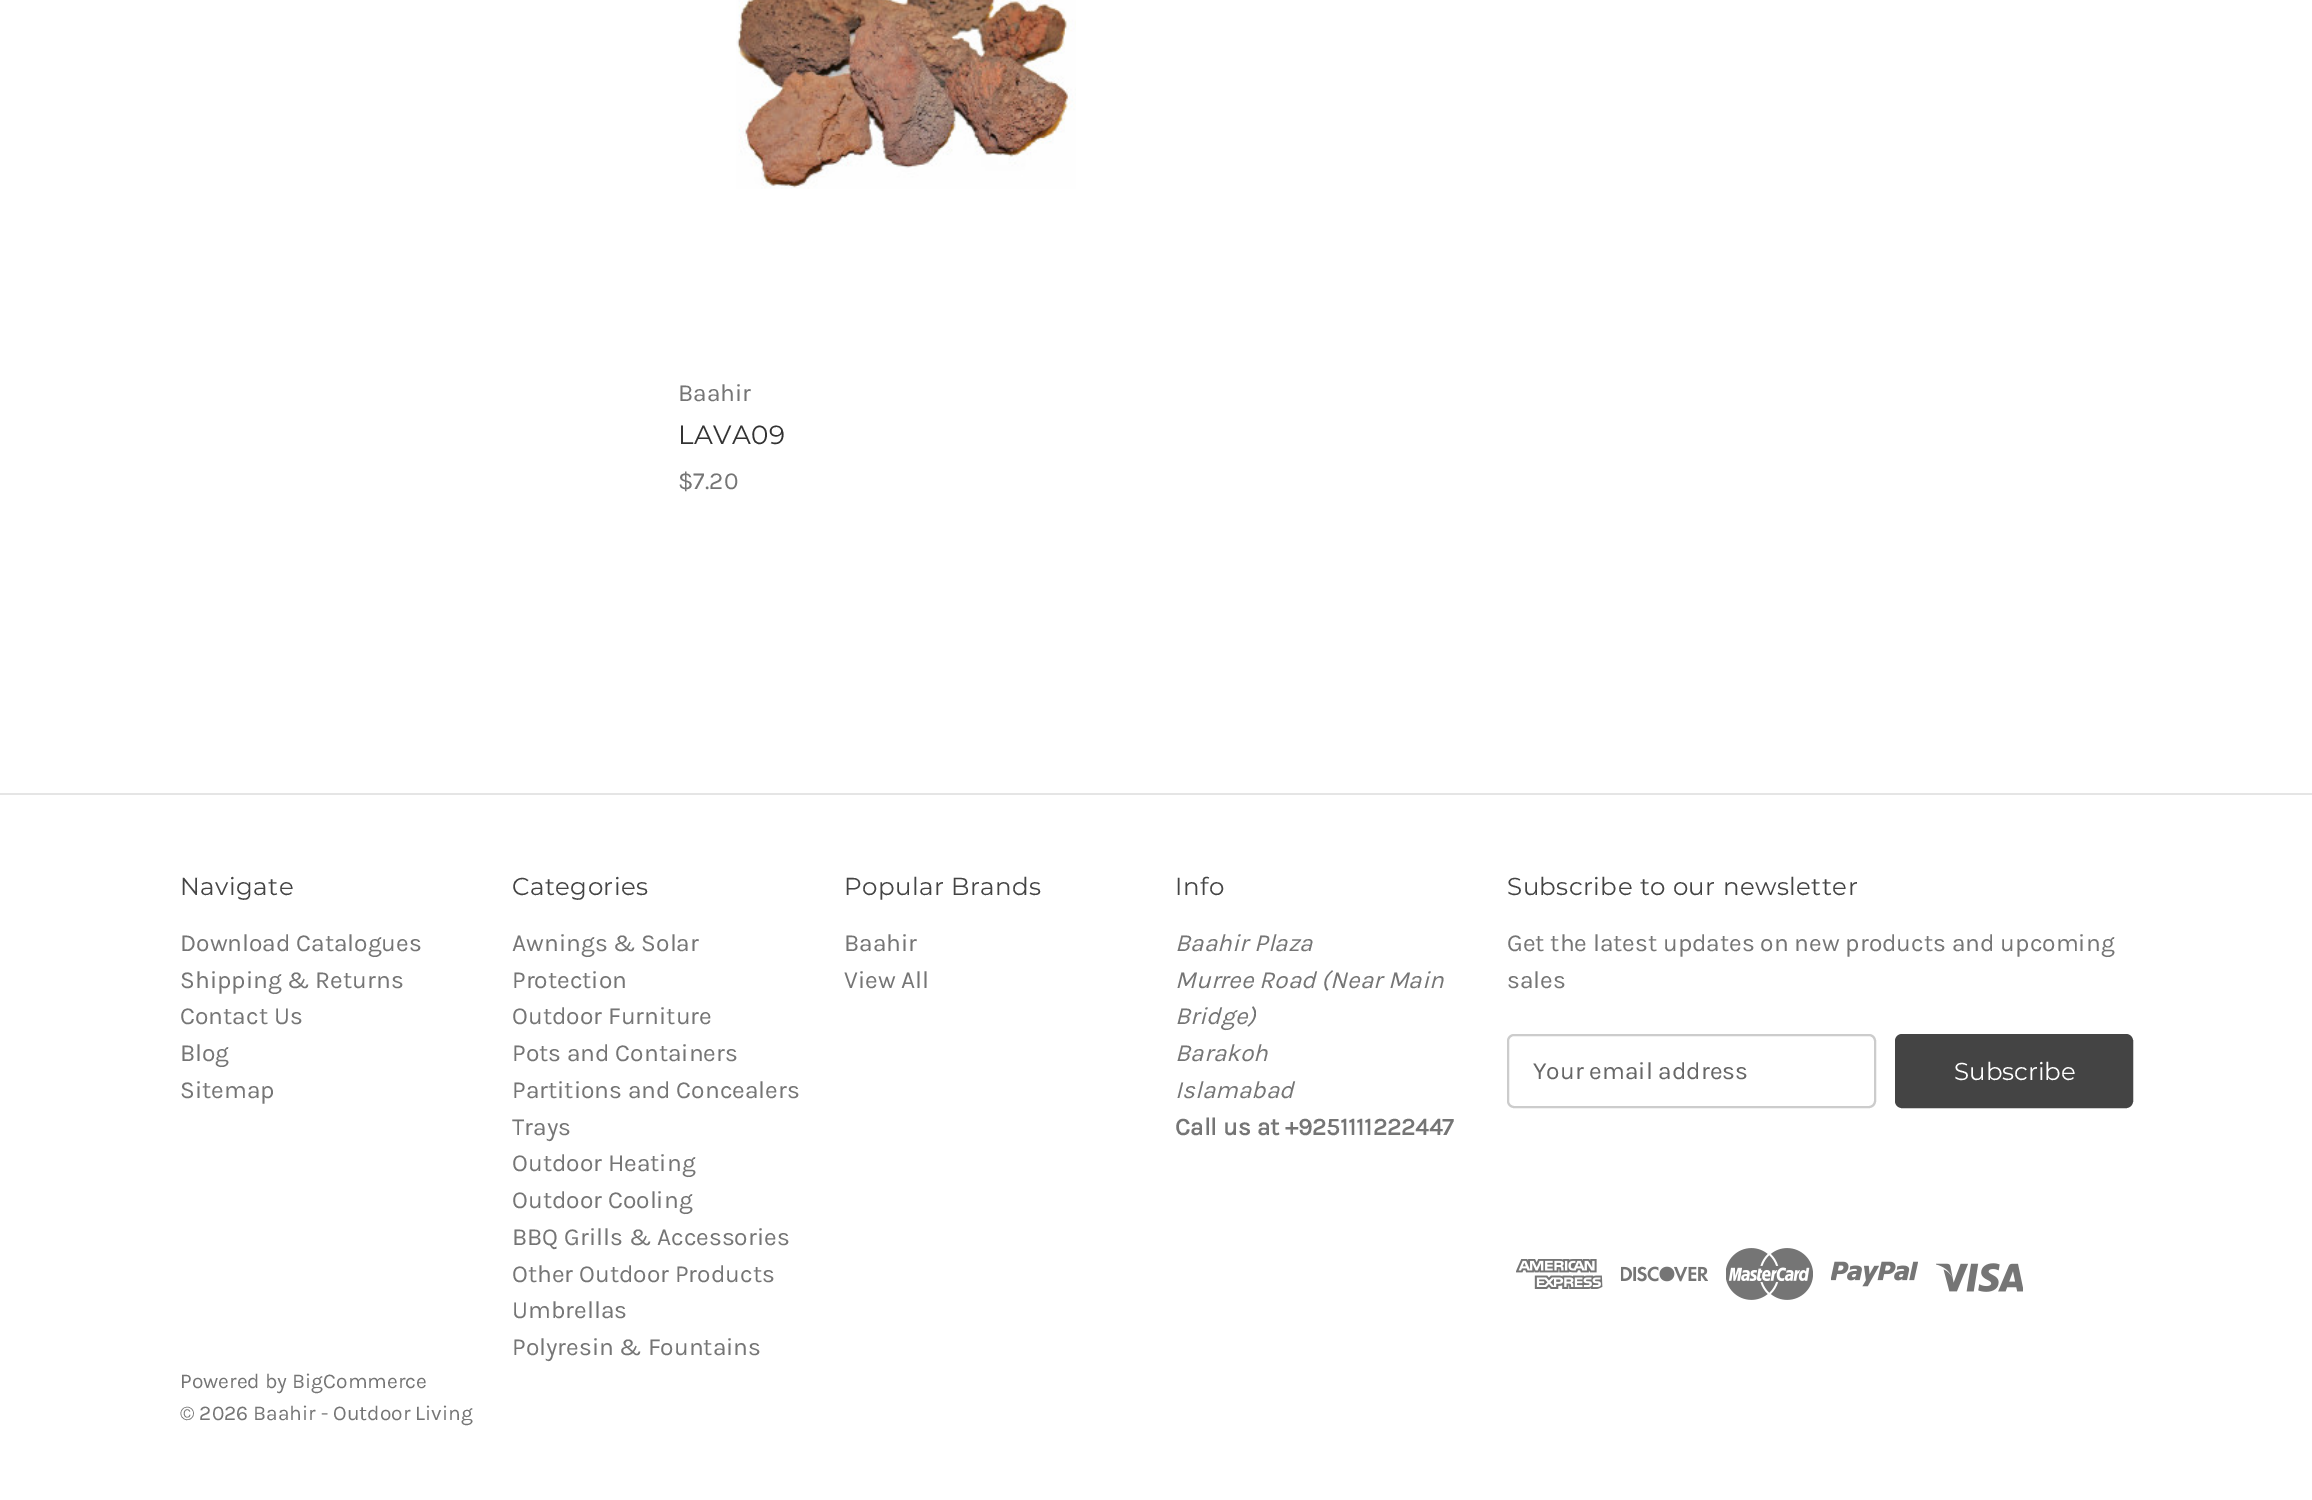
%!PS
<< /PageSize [2312 1500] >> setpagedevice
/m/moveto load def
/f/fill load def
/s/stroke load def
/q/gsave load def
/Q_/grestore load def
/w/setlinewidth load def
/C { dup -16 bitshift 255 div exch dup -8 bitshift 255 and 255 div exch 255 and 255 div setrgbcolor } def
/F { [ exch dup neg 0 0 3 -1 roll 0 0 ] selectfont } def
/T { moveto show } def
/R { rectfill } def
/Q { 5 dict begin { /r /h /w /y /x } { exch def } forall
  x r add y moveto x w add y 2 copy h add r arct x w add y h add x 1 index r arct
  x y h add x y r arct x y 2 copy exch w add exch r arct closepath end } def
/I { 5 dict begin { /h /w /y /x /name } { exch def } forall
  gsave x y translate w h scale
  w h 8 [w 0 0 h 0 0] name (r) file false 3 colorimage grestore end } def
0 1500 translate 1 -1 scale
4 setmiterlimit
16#FFFFFF C
0 0 2312 1500 R
(1.rgb) 736 0 340 189 I
/Karla-Regular 24.5 F
16#757575 C
(Baahir) 678 401 T
/Montserrat-Regular 26.25 F
16#333333 C
678 444 m .45 0 (LAVA09) ashow
/Karla-Regular 24.5 F
16#757575 C
($7.20) 678 489 T
16#E5E5E5 C
0 793 2312 2 R
/Montserrat-Regular 24.5 F
16#444444 C
180 895 m .45 0 (Navigate) ashow
/Karla-Regular 24.5 F
16#757575 C
(Download Catalogues) 180 951 T
(Shipping & Returns) 180 988 T
(Contact Us) 180 1024 T
(Blog) 180 1061 T
(Sitemap) 180 1098 T
/Montserrat-Regular 24.5 F
16#444444 C
512 895 m .45 0 (Categories) ashow
/Karla-Regular 24.5 F
16#757575 C
(Awnings & Solar) 512 951 T
(Protection) 512 988 T
(Outdoor Furniture) 512 1024 T
(Pots and Containers) 512 1061 T
(Partitions and Concealers) 512 1098 T
(Trays) 512 1135 T
(Outdoor Heating) 512 1171 T
(Outdoor Cooling) 512 1208 T
(BBQ Grills & Accessories) 512 1245 T
(Other Outdoor Products) 512 1282 T
(Umbrellas) 512 1318 T
(Polyresin & Fountains) 512 1355 T
/Montserrat-Regular 24.5 F
16#444444 C
844 895 m .45 0 (Popular Brands) ashow
/Karla-Regular 24.5 F
16#757575 C
(Baahir) 844 951 T
(View All) 844 988 T
/Montserrat-Regular 24.5 F
16#444444 C
1175 895 m .45 0 (Info) ashow
/Karla-Italic 24.5 F
16#757575 C
(Baahir Plaza) 1175 951 T
(Murree Road \(Near Main) 1175 988 T
(Bridge\)) 1175 1024 T
(Barakoh) 1175 1061 T
(Islamabad) 1175 1098 T
/Karla-Bold 24.5 F
(Call us at +9251111222447) 1175 1135 T
/Montserrat-Regular 24.5 F
16#444444 C
1507 895 m .45 0 (Subscribe to our newsletter) ashow
/Karla-Regular 24.5 F
16#757575 C
(Get the latest updates on new products and upcoming) 1507 951 T
(sales) 1507 988 T
16#CCCCCC C
2 w
1508 1035 367 72 6 Q s
16#666666 C
(Your email address) 1533 1079 T
16#444444 C
1896 1035 236 72 6 Q q f Q_
s
/Montserrat-Regular 24.5 F
16#FFFFFF C
(Subscribe) 1954 1080 T
(2.rgb) 1516 1259 87 30 I
(3.rgb) 1621 1266 87 16 I
(4.rgb) 1726 1248 87 52 I
(5.rgb) 1831 1261 87 26 I
(6.rgb) 1936 1263 87 29 I
/Karla-Regular 21 F
16#757575 C
(Powered by BigCommerce) 180 1388 T
(© 2026 Baahir - Outdoor Living) 180 1420 T
showpage
